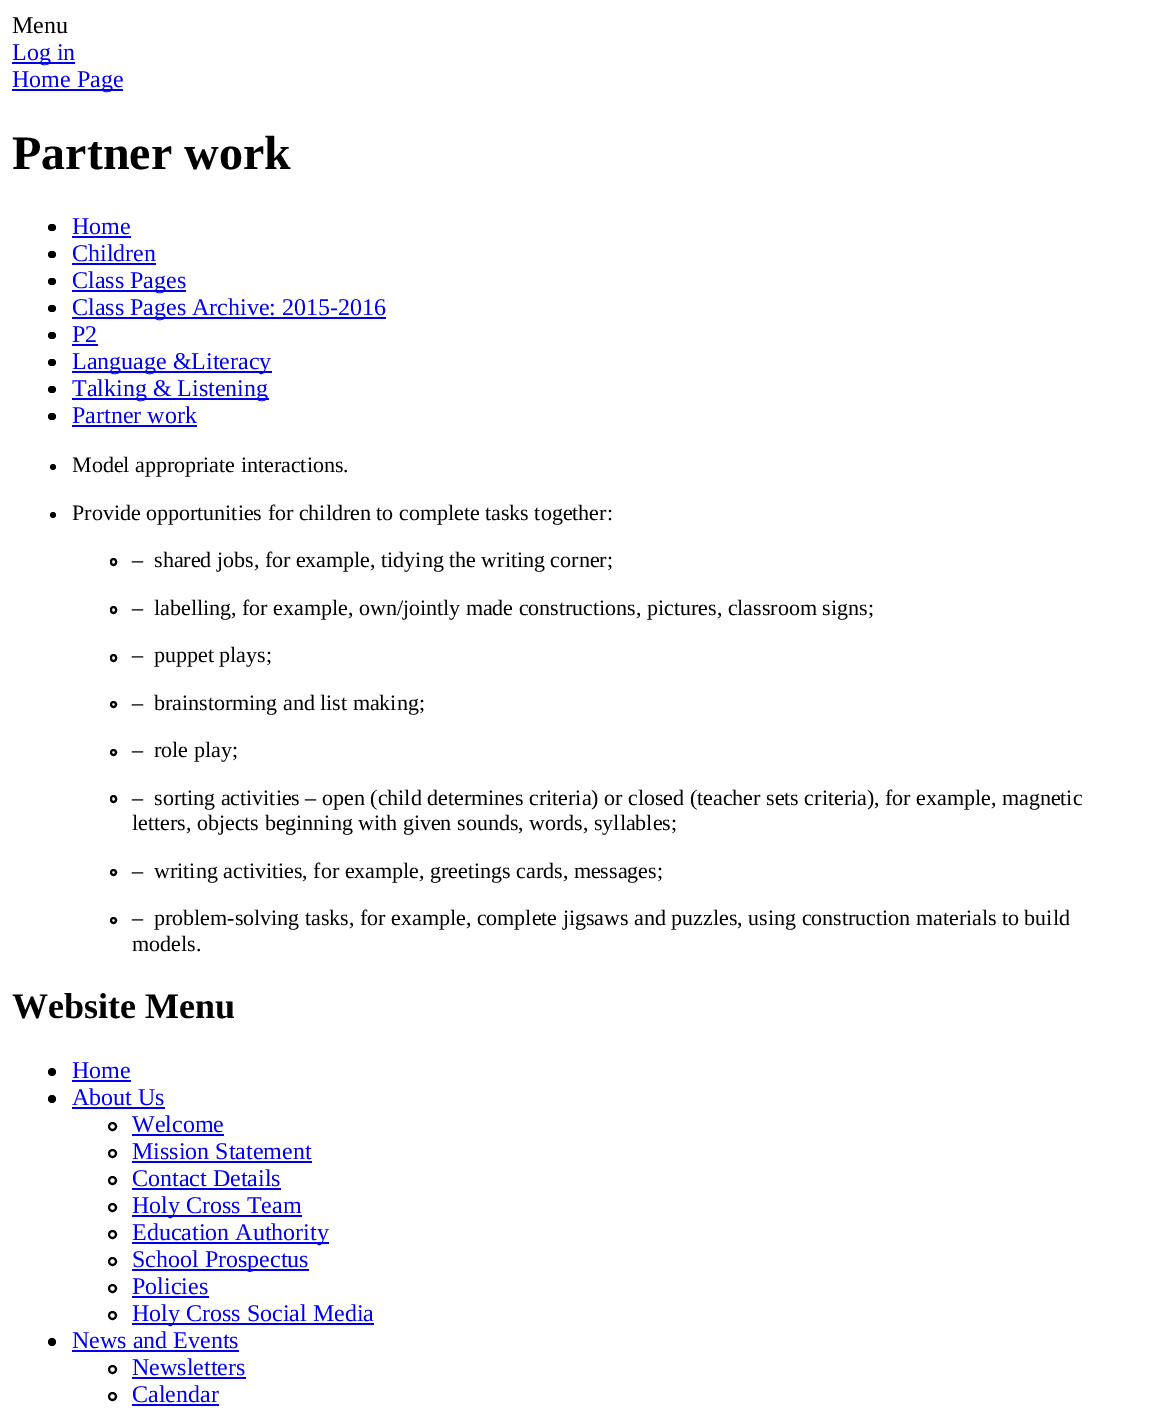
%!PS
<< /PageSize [1158 1409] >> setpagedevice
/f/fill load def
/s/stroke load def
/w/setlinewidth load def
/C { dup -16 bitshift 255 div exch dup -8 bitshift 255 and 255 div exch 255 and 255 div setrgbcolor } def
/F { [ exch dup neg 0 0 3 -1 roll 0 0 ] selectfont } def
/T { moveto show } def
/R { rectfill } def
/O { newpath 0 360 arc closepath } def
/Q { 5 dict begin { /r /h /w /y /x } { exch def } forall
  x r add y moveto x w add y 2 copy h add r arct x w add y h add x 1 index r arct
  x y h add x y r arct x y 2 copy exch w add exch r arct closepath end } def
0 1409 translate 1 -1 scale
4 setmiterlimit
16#FFFFFF C
0 0 1158 1409 R
/LiberationSerif-Regular 24 F
16#000000 C
(Menu) 12 33 T
16#0000EE C
12 62 63 2 R
(Log in) 12 60 T
12 89 111 2 R
(Home Page) 12 87 T
/LiberationSerif-Bold 48 F
16#000000 C
(Partner work) 12 169 T
48 224 8 7 3.5 Q f
/LiberationSerif-Regular 24 F
16#0000EE C
(Home) 72 234 T
72 236 59 2 R
16#000000 C
48 251 8 7 3.5 Q f
16#0000EE C
(Children) 72 261 T
72 263 84 2 R
16#000000 C
48 278 8 7 3.5 Q f
16#0000EE C
72 290 114 2 R
(Class Pages) 72 288 T
16#000000 C
48 305 8 7 3.5 Q f
16#0000EE C
72 317 314 2 R
(Class Pages Archive: 2015-2016) 72 315 T
16#000000 C
48 332 8 7 3.5 Q f
16#0000EE C
(P2) 72 342 T
72 344 26 2 R
16#000000 C
48 359 8 7 3.5 Q f
16#0000EE C
72 371 200 2 R
(Language &Literacy) 72 369 T
16#000000 C
48 386 8 7 3.5 Q f
16#0000EE C
72 398 197 2 R
(Talking & Listening) 72 396 T
16#000000 C
48 413 8 7 3.5 Q f
16#0000EE C
(Partner work) 72 423 T
72 425 125 2 R
16#000000 C
53 467 3 O f
/LiberationSerif-Regular 22 F
(Model appropriate interactions.) 72 472 T
53 515 3 O f
(Provide opportunities for children to complete tasks together:) 72 520 T
2 w
111 559 5 6 2.5 Q s
(–  shared jobs, for example, tidying the writing corner;) 132 567 T
111 607 5 6 2.5 Q s
(–  labelling, for example, own/jointly made constructions, pictures, classroom signs;) 132 615 T
111 655 5 6 2.5 Q s
(–  puppet plays;) 132 662 T
113.5 704.5 2.5 O s
(–  brainstorming and list making;) 132 710 T
113.5 752.5 2.5 O s
(–  role play;) 132 757 T
111 796 5 6 2.5 Q s
(–  sorting activities – open \(child determines criteria\) or closed \(teacher sets criteria\), for example, magnetic) 132 805 T
(letters, objects beginning with given sounds, words, syllables;) 132 830 T
113.5 872.5 2.5 O s
(–  writing activities, for example, greetings cards, messages;) 132 878 T
113.5 920.5 2.5 O s
(–  problem-solving tasks, for example, complete jigsaws and puzzles, using construction materials to build) 132 925 T
(models.) 132 951 T
/LiberationSerif-Bold 36 F
(Website Menu) 12 1018 T
52 1072 4 O f
/LiberationSerif-Regular 24 F
16#0000EE C
(Home) 72 1078 T
72 1080 59 2 R
16#000000 C
52 1099 4 O f
16#0000EE C
(About Us) 72 1105 T
72 1107 93 2 R
16#000000 C
112.5 1126.5 3.5 O s
16#0000EE C
(Welcome) 132 1132 T
132 1134 92 2 R
16#000000 C
112.5 1153.5 3.5 O s
16#0000EE C
(Mission Statement) 132 1159 T
132 1161 180 2 R
16#000000 C
112.5 1180.5 3.5 O s
16#0000EE C
(Contact Details) 132 1186 T
132 1188 149 2 R
16#000000 C
112.5 1207.5 3.5 O s
16#0000EE C
132 1215 170 2 R
(Holy Cross Team) 132 1213 T
16#000000 C
112.5 1234.5 3.5 O s
16#0000EE C
132 1242 197 2 R
(Education Authority) 132 1240 T
16#000000 C
112.5 1261.5 3.5 O s
16#0000EE C
132 1269 177 2 R
(School Prospectus) 132 1267 T
16#000000 C
112.5 1288.5 3.5 O s
16#0000EE C
(Policies) 132 1294 T
132 1296 77 2 R
16#000000 C
112.5 1315.5 3.5 O s
16#0000EE C
132 1323 242 2 R
(Holy Cross Social Media) 132 1321 T
16#000000 C
52 1342 4 O f
16#0000EE C
(News and Events) 72 1348 T
72 1350 167 2 R
16#000000 C
112.5 1369.5 3.5 O s
16#0000EE C
(Newsletters) 132 1375 T
132 1377 114 2 R
16#000000 C
112.5 1396.5 3.5 O s
16#0000EE C
(Calendar) 132 1402 T
132 1404 87 2 R
showpage
